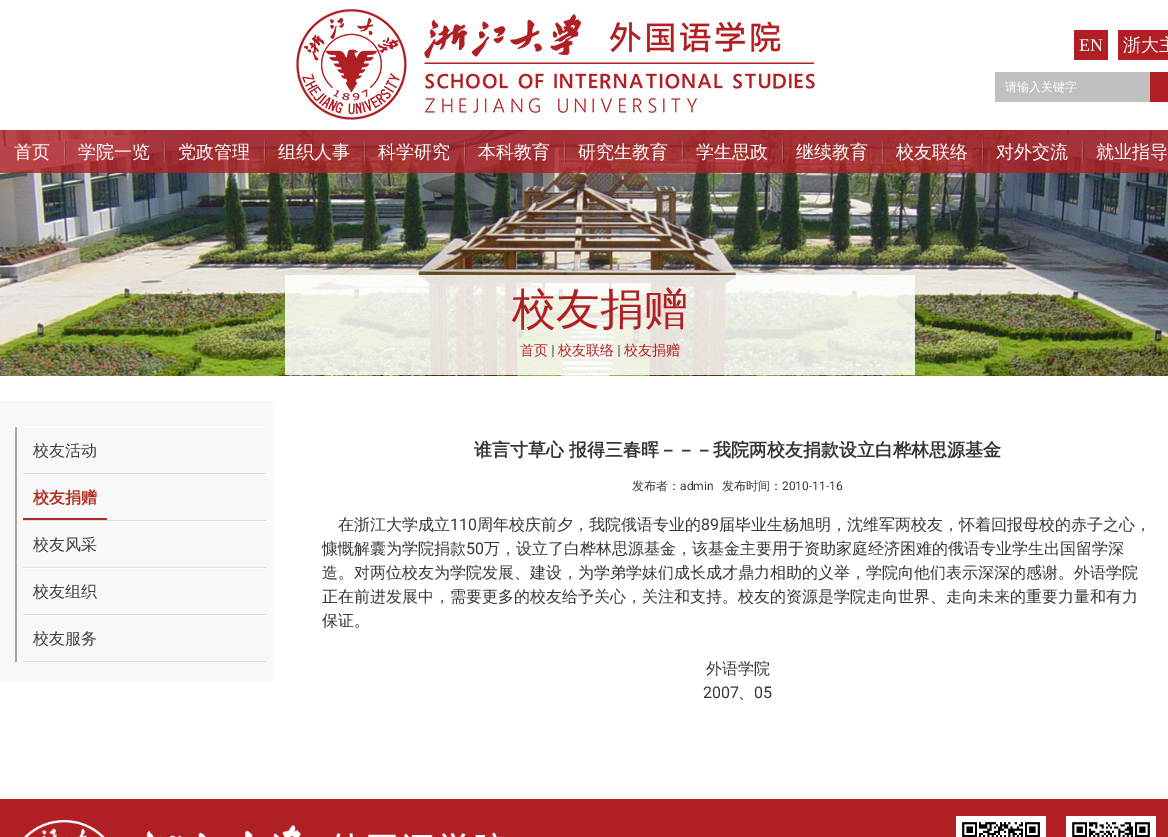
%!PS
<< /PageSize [1168 837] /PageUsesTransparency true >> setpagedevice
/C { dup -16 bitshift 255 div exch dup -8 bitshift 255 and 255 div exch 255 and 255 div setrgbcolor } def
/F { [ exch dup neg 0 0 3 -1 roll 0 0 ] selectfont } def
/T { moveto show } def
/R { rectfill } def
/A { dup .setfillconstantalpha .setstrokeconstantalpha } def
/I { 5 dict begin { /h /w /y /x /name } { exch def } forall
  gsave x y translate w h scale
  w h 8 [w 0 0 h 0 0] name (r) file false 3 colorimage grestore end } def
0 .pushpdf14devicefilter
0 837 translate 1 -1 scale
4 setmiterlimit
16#FFFFFF C
0 0 1168 837 R
(1.rgb) 296 8 520 112 I
16#B01F24 C
1074 30 34 30 R
/LiberationSerif-Regular 18 F
16#FFFFFF C
(EN) 1079 51 T
16#B01F24 C
1118 30 50 30 R
/WenQuanYiZenHei-Medium 18 F
16#FFFFFF C
(浙大主) 1123 51 T
16#C0C0C0 C
995 72 155 30 R
/WenQuanYiZenHei-Medium 12 F
16#FFFFFF C
(请输入关键字) 1005 91 T
16#B01F24 C
1150 72 18 30 R
(13.rgb) 0 130 1168 246 I
0.8 A
0 130 1168 43 R
/WenQuanYiZenHei-Medium 18 F
1 A
16#FFFFFF C
(首页) 14 158 T
(2.rgb) 64 140 2 24 I
(学院一览) 78 158 T
(3.rgb) 164 140 2 24 I
(党政管理) 178 158 T
(4.rgb) 264 140 2 24 I
(组织人事) 278 158 T
(5.rgb) 364 140 2 24 I
(科学研究) 378 158 T
(6.rgb) 464 140 2 24 I
(本科教育) 478 158 T
(7.rgb) 564 140 2 24 I
(研究生教育) 578 158 T
(8.rgb) 682 140 2 24 I
(学生思政) 696 158 T
(9.rgb) 782 140 2 24 I
(继续教育) 796 158 T
(10.rgb) 882 140 2 24 I
(校友联络) 896 158 T
(11.rgb) 982 140 2 24 I
(对外交流) 996 158 T
(12.rgb) 1082 140 2 24 I
(就业指导) 1096 158 T
0.85 A
285 275 630 100 R
/WenQuanYiZenHei-Medium 44 F
1 A
16#B01F24 C
(校友捐赠) 512 324 T
/WenQuanYiZenHei-Medium 14 F
(首页) 520 355 T
0.5 A
16#444444 C
552 345 2 12 R
1 A
16#B01F24 C
(校友联络) 558 355 T
0.5 A
16#444444 C
618 345 2 12 R
1 A
16#B01F24 C
(校友捐赠) 624 355 T
16#F8F8F8 C
0 401 273 281 R
16#A7A7A7 C
15 427 2 235 R
16#FFFFFF C
23 427 243 1 R
16#DDDDDD C
23 473 243 1 R
/WenQuanYiZenHei-Medium 16 F
16#3E3E3E C
(校友活动) 33 456 T
16#FFFFFF C
23 474 243 1 R
16#DDDDDD C
23 520 243 1 R
16#B22B23 C
23 518 84 2 R
/WenQuanYiZenHei-Bold 16 F
(校友捐赠) 33 503 T
16#FFFFFF C
23 521 243 1 R
16#DDDDDD C
23 567 243 1 R
/WenQuanYiZenHei-Medium 16 F
16#3E3E3E C
(校友风采) 33 550 T
16#FFFFFF C
23 568 243 1 R
16#DDDDDD C
23 614 243 1 R
16#3E3E3E C
(校友组织) 33 597 T
16#FFFFFF C
23 615 243 1 R
16#DDDDDD C
23 661 243 1 R
16#3E3E3E C
(校友服务) 33 644 T
/WenQuanYiZenHei-Bold 18 F
16#363636 C
(谁言寸草心) 474 456 T
(报得三春晖－－－我院两校友捐款设立白桦林思源基金) 569 456 T
/WenQuanYiZenHei-Medium 12 F
(发布者：) 632 490 T
/Roboto-Regular 12 F
(admin) 680 490 T
/WenQuanYiZenHei-Medium 12 F
(发布时间：) 722 490 T
/Roboto-Regular 12 F
(2010-11-16) 782 490 T
/WenQuanYiZenHei-Medium 16 F
(在浙江大学成立) 338 530 T
/Roboto-Regular 16 F
(110) 450 530 T
/WenQuanYiZenHei-Medium 16 F
(周年校庆前夕，我院俄语专业的) 477 530 T
/Roboto-Regular 16 F
(89) 701 530 T
/WenQuanYiZenHei-Medium 16 F
(届毕业生杨旭明，沈维军两校友，怀着回报母校的赤子之心，) 719 530 T
(慷慨解囊为学院捐款) 322 554 T
/Roboto-Regular 16 F
(50) 466 554 T
/WenQuanYiZenHei-Medium 16 F
(万，设立了白桦林思源基金，该基金主要用于资助家庭经济困难的俄语专业学生出国留学深) 484 554 T
(造。对两位校友为学院发展、建设，为学弟学妹们成长成才鼎力相助的义举，学院向他们表示深深的感谢。外语学院) 322 578 T
(正在前进发展中，需要更多的校友给予关心，关注和支持。校友的资源是学院走向世界、走向未来的重要力量和有力) 322 602 T
(保证。) 322 626 T
(外语学院) 706 674 T
/Roboto-Regular 16 F
(2007) 703 698 T
/WenQuanYiZenHei-Medium 16 F
(、) 738 698 T
/Roboto-Regular 16 F
(05) 754 698 T
16#B01F24 C
0 799 1168 38 R
(14.rgb) 24 820 480 17 I
(15.rgb) 956 816 90 21 I
(16.rgb) 1066 816 90 21 I
.poppdf14devicefilter showpage
